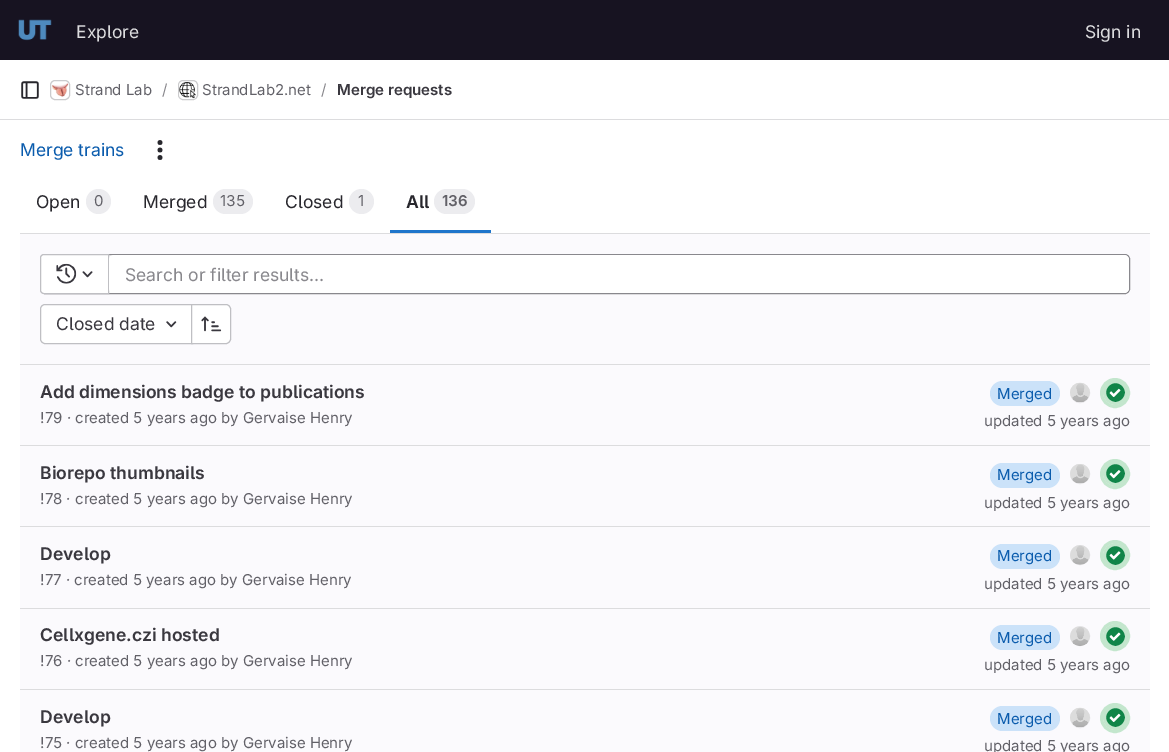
%!PS
<< /PageSize [1169 752] /PageUsesTransparency true >> setpagedevice
/m/moveto load def
/l/rlineto load def
/c/rcurveto load def
/z/closepath load def
/f/fill load def
/s/stroke load def
/q/gsave load def
/Q_/grestore load def
/w/setlinewidth load def
/C { dup -16 bitshift 255 div exch dup -8 bitshift 255 and 255 div exch 255 and 255 div setrgbcolor } def
/F { [ exch dup neg 0 0 3 -1 roll 0 0 ] selectfont } def
/T { moveto show } def
/R { rectfill } def
/A { dup .setfillconstantalpha .setstrokeconstantalpha } def
/O { newpath 0 360 arc closepath } def
/Q { 5 dict begin { /r /h /w /y /x } { exch def } forall
  x r add y moveto x w add y 2 copy h add r arct x w add y h add x 1 index r arct
  x y h add x y r arct x y 2 copy exch w add exch r arct closepath end } def
/I { 5 dict begin { /h /w /y /x /name } { exch def } forall
  gsave x y translate w h scale
  w h 8 [w 0 0 h 0 0] name (r) file false 3 colorimage grestore end } def
0 .pushpdf14devicefilter
0 752 translate 1 -1 scale
4 setmiterlimit
16#FFFFFF C
0 0 1169 752 R
16#171321 C
0 0 1169 60 R
(1.rgb) 18 19 34 22 I
/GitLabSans-Regular 17.5 F
16#DCDCDE C
(Explore) 76 38 T
(Sign in) 1085 38 T
0 119 1169 1 R
(2.rgb) 21 81 18 18 I
50.5 80.5 19 19 4.5 Q s
(3.rgb) 52 83 17 14 I
0.08 A
16#050506 C
50.5 80.5 19 19 4.5 Q s
/GitLabSans-Regular 15 F
1 A
16#626168 C
(Strand Lab) 75 95 T
16#89888D C
(/) 162 95 T
16#DCDCDE C
178.5 80.5 19 19 4.5 Q s
(4.rgb) 179 82 17 17 I
0.08 A
16#050506 C
178.5 80.5 19 19 4.5 Q s
1 A
16#626168 C
(StrandLab2.net) 202 95 T
16#89888D C
(/) 321 95 T
/GitLabSans-SemiBold 15 F
16#3A383F C
(Merge requests) 337 95 T
/GitLabSans-Regular 17.5 F
16#0B5CAD C
(Merge trains) 20 156 T
(5.rgb) 157 140 6 20 I
16#28272D C
(Open) 36 208 T
16#ECECEF C
98.5 201.5 12.5 O f
/GitLabSans-Regular 15 F
16#626168 C
(0) 94 206 T
/GitLabSans-Regular 17.5 F
16#28272D C
(Merged) 143 208 T
16#ECECEF C
213 189 40 25 12.5 Q f
/GitLabSans-Regular 15 F
16#626168 C
(135) 220 206 T
/GitLabSans-Regular 17.5 F
16#28272D C
(Closed) 285 208 T
16#ECECEF C
361.5 201.5 12.5 O f
/GitLabSans-Regular 15 F
16#626168 C
(1) 358 206 T
/GitLabSans-SemiBold 17.5 F
16#28272D C
(All) 406 208 T
16#ECECEF C
434 189 41 25 12.5 Q f
/GitLabSans-SemiBold 15 F
16#626168 C
(136) 442 206 T
16#1F75CB C
390 230 101 3 R
16#FBFAFD C
20 234 1130 130 R
16#DCDCDE C
20 233 1130 1 R
20 364 1130 1 R
16#FFFFFF C
40.5 254.5 1089 39 4.5 Q q f Q_
16#89888D C
s
16#FFFFFF C
44 254.5 m 64.5 0 l 0 39 l -64.5 0 l -2 0 -3.5 -1.5 -3.5 -3.5 c 0 -32 l 0 -2 1.5 -3.5 3.5 -3.5 c z q f Q_
16#BFBFC3 C
s
(6.rgb) 56 263 21 21 I
(7.rgb) 82 271 11 7 I
16#FFFFFF C
109 255 1020 38 5 Q f
/GitLabSans-Regular 17.5 F
16#89888D C
(Search or filter results…) 125 281 T
16#FFFFFF C
45 304.5 m 147.5 0 l 0 39 l -147.5 0 l -2.5 0 -4.5 -2 -4.5 -4.5 c 0 -30 l 0 -2.5 2 -4.5 4.5 -4.5 c z q f Q_
16#BFBFC3 C
s
16#3A383F C
(Closed date) 56 330 T
(8.rgb) 166 321 11 7 I
16#FFFFFF C
191.5 304.5 m 34.5 0 l 2.5 0 4.5 2 4.5 4.5 c 0 30 l 0 2.5 -2 4.5 -4.5 4.5 c -34.5 0 l z q f Q_
16#BFBFC3 C
s
(9.rgb) 201 316 21 16 I
16#FBFAFD C
20 365 1130 80 R
16#DCDCDE C
20 445 1130 1 R
/GitLabSans-SemiBold 17.5 F
16#3A383F C
(Add dimensions badge to publications) 40 398 T
/GitLabSans-Regular 15 F
16#626168 C
(!79 · created 5 years ago by Gervaise Henry) 40 423 T
16#CBE2F9 C
990 381 70 25 12.5 Q f
16#0B5CAD C
(Merged) 997 399 T
16#E7E6E9 C
1080 393 9.5 O s
(10.rgb) 1070 382 20 20 I
16#C3E6CD C
3 w
1115 393 13.5 O s
16#108548 C
1115.5 392.5 11 O q f Q_
16#C3E6CD C
s
(11.rgb) 1109 388 12 9 I
16#626168 C
(updated 5 years ago) 984 426 T
16#FBFAFD C
20 446 1130 162 R
16#DCDCDE C
20 526 1130 1 R
/GitLabSans-SemiBold 17.5 F
16#3A383F C
(Biorepo thumbnails) 40 479 T
/GitLabSans-Regular 15 F
16#626168 C
(!78 · created 5 years ago by Gervaise Henry) 40 504 T
16#CBE2F9 C
990 463 70 25 12.5 Q f
16#0B5CAD C
(Merged) 997 480 T
16#E7E6E9 C
1 w
1080 474 9.5 O s
(12.rgb) 1070 464 20 20 I
16#C3E6CD C
3 w
1115 474 13.5 O s
16#108548 C
1115.5 473.5 11 O q f Q_
16#C3E6CD C
s
(13.rgb) 1109 470 12 9 I
16#626168 C
(updated 5 years ago) 984 508 T
16#DCDCDE C
20 608 1130 1 R
/GitLabSans-SemiBold 17.5 F
16#3A383F C
(Develop) 40 560 T
/GitLabSans-Regular 15 F
16#626168 C
(!77 · created 5 years ago by Gervaise Henry) 40 585 T
16#CBE2F9 C
990 544 70 25 12.5 Q f
16#0B5CAD C
(Merged) 997 561 T
16#E7E6E9 C
1 w
1080 555 9.5 O s
(14.rgb) 1070 545 20 20 I
16#C3E6CD C
3 w
1115 555 13.5 O s
16#108548 C
1115.5 555.5 11 O q f Q_
16#C3E6CD C
s
(15.rgb) 1109 551 12 9 I
16#626168 C
(updated 5 years ago) 984 589 T
16#FBFAFD C
20 609 1130 80 R
16#DCDCDE C
20 689 1130 1 R
/GitLabSans-SemiBold 17.5 F
16#3A383F C
(Cellxgene.czi hosted) 40 641 T
/GitLabSans-Regular 15 F
16#626168 C
(!76 · created 5 years ago by Gervaise Henry) 40 666 T
16#CBE2F9 C
990 625 70 25 12.5 Q f
16#0B5CAD C
(Merged) 997 643 T
16#E7E6E9 C
1 w
1080 636 9.5 O s
(16.rgb) 1070 626 20 20 I
16#C3E6CD C
3 w
1115 636 13.5 O s
16#108548 C
1115.5 636.5 11 O q f Q_
16#C3E6CD C
s
(17.rgb) 1109 632 12 9 I
16#626168 C
(updated 5 years ago) 984 670 T
16#FBFAFD C
20 690 1130 62 R
/GitLabSans-SemiBold 17.5 F
16#3A383F C
(Develop) 40 723 T
/GitLabSans-Regular 15 F
16#626168 C
(!75 · created 5 years ago by Gervaise Henry) 40 748 T
16#CBE2F9 C
990 706 70 25 12.5 Q f
16#0B5CAD C
(Merged) 997 724 T
16#E7E6E9 C
1 w
1080 718 9.5 O s
(10.rgb) 1070 707 20 20 I
16#C3E6CD C
3 w
1115 718 13.5 O s
16#108548 C
1115.5 717.5 11 O q f Q_
16#C3E6CD C
s
(11.rgb) 1109 713 12 9 I
16#626168 C
(updated 5 years ago) 984 751 T
.poppdf14devicefilter showpage
